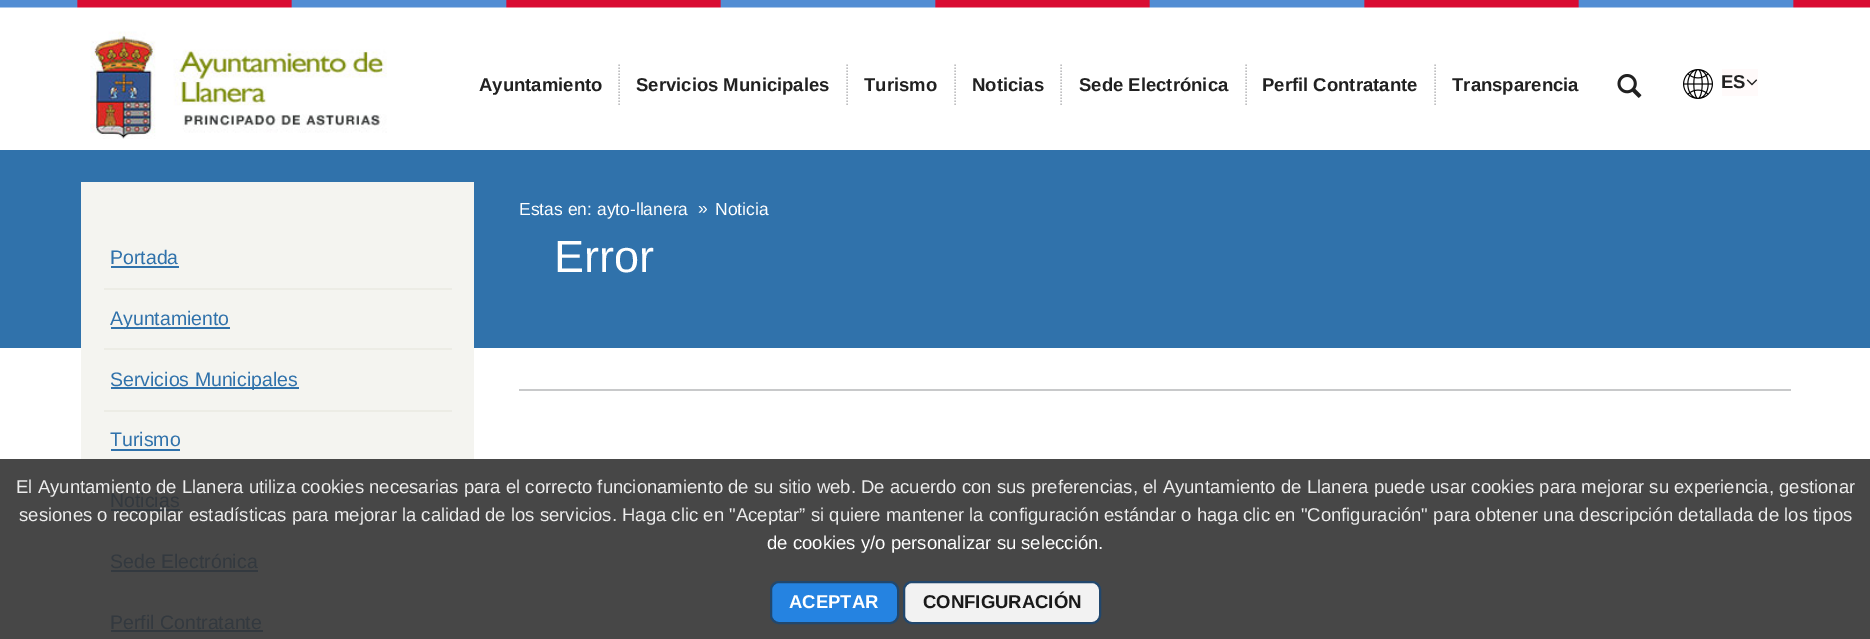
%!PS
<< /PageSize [1870 639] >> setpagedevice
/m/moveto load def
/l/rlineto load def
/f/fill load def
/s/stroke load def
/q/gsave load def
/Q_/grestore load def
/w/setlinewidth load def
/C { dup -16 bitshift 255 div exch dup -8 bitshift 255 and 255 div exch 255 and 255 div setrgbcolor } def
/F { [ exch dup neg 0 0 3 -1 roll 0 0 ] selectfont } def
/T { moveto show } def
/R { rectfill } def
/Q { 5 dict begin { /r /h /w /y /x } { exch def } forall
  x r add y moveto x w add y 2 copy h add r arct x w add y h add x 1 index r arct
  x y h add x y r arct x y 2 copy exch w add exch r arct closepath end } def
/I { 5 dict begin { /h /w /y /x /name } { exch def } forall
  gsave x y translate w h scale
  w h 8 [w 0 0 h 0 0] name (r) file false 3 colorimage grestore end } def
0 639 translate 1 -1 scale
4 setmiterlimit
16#FFFFFF C
0 0 1870 639 R
16#474747 C
0 459 1870 180 R
(1.rgb) 0 0 1870 8 I
(2.rgb) 90 31 297 108 I
16#BFBFC1 C
1.5 w
[1.5 1.5] 0 setdash
619 64.5 m 0 42 l s
/LiberationSans-Bold 18.52 F
16#212121 C
(Ayuntamiento) 479 91 T
16#BFBFC1 C
847 64.5 m 0 42 l s
16#212121 C
(Servicios Municipales) 636 91 T
16#BFBFC1 C
955 64.5 m 0 42 l s
16#212121 C
(Turismo) 864 91 T
16#BFBFC1 C
1061 64.5 m 0 42 l s
16#212121 C
(Noticias) 972 91 T
16#BFBFC1 C
1246 64.5 m 0 42 l s
16#212121 C
(Sede Electrónica) 1079 91 T
16#BFBFC1 C
1435 64.5 m 0 42 l s
16#212121 C
(Perfil Contratante) 1262 91 T
(Transparencia) 1452 91 T
(3.rgb) 1617 74 25 24 I
(4.rgb) 1683 69 30 30 I
16#FFFAFA C
1722 69 36 27 R
16#212121 C
(ES) 1721 88 T
(5.rgb) 1746 79 12 7 I
16#3072AB C
0 150 1870 198 R
/LiberationSans-Regular 17.5 F
16#FFFFFF C
(Estas en: ayto-llanera) 519 215 T
(») 698 214 T
(Noticia) 715 215 T
16#C8C9CA C
519 389 1272 2 R
/LiberationSans-Regular 45 F
16#FFFFFF C
(Error) 554 272 T
16#F4F4F0 C
81 182 393 277 R
16#ECECE5 C
104 288 348 2 R
/LiberationSans-Regular 19.5 F
16#3072AB C
(Portada) 110 264 T
111 266 68 2 R
16#ECECE5 C
104 348 348 2 R
16#3072AB C
111 327 119 2 R
(Ayuntamiento) 110 325 T
16#ECECE5 C
104 410 348 2 R
16#3072AB C
111 387 188 2 R
(Servicios Municipales) 110 386 T
(Turismo) 110 446 T
111 449 69 2 R
16#33393F C
(Noticias) 110 507 T
111 509 69 2 R
(Sede Electrónica) 110 568 T
111 570 147 2 R
(Perfil Contratante) 110 629 T
111 630 152 2 R
/LiberationSans-Regular 18.52 F
16#EDEDED C
(El Ayuntamiento de Llanera utiliza cookies necesarias para el correcto funcionamiento de su sitio web. De acuerdo con sus preferencias, el Ayuntamiento de Llanera puede usar cookies para mejorar su experiencia, gestionar) 16 493 T
(sesiones o recopilar estadísticas para mejorar la calidad de los servicios. Haga clic en "Aceptar” si quiere mantener la configuración estándar o haga clic en "Configuración" para obtener una descripción detallada de los tipos) 19 521 T
16#FFFFFF C
(de cookies y/o personalizar su selección.) 767 549 T
16#2583E1 C
771 582 127 41 8 Q q f Q_
16#21476D C
2 w
[] 0 setdash
s
/LiberationSans-Bold 18.52 F
16#FFFFFF C
(ACEPTAR) 789 608 T
16#F2F2F2 C
904 582 196 41 8 Q q f Q_
16#21476D C
s
16#1A1A1A C
(CONFIGURACIÓN) 923 608 T
showpage
